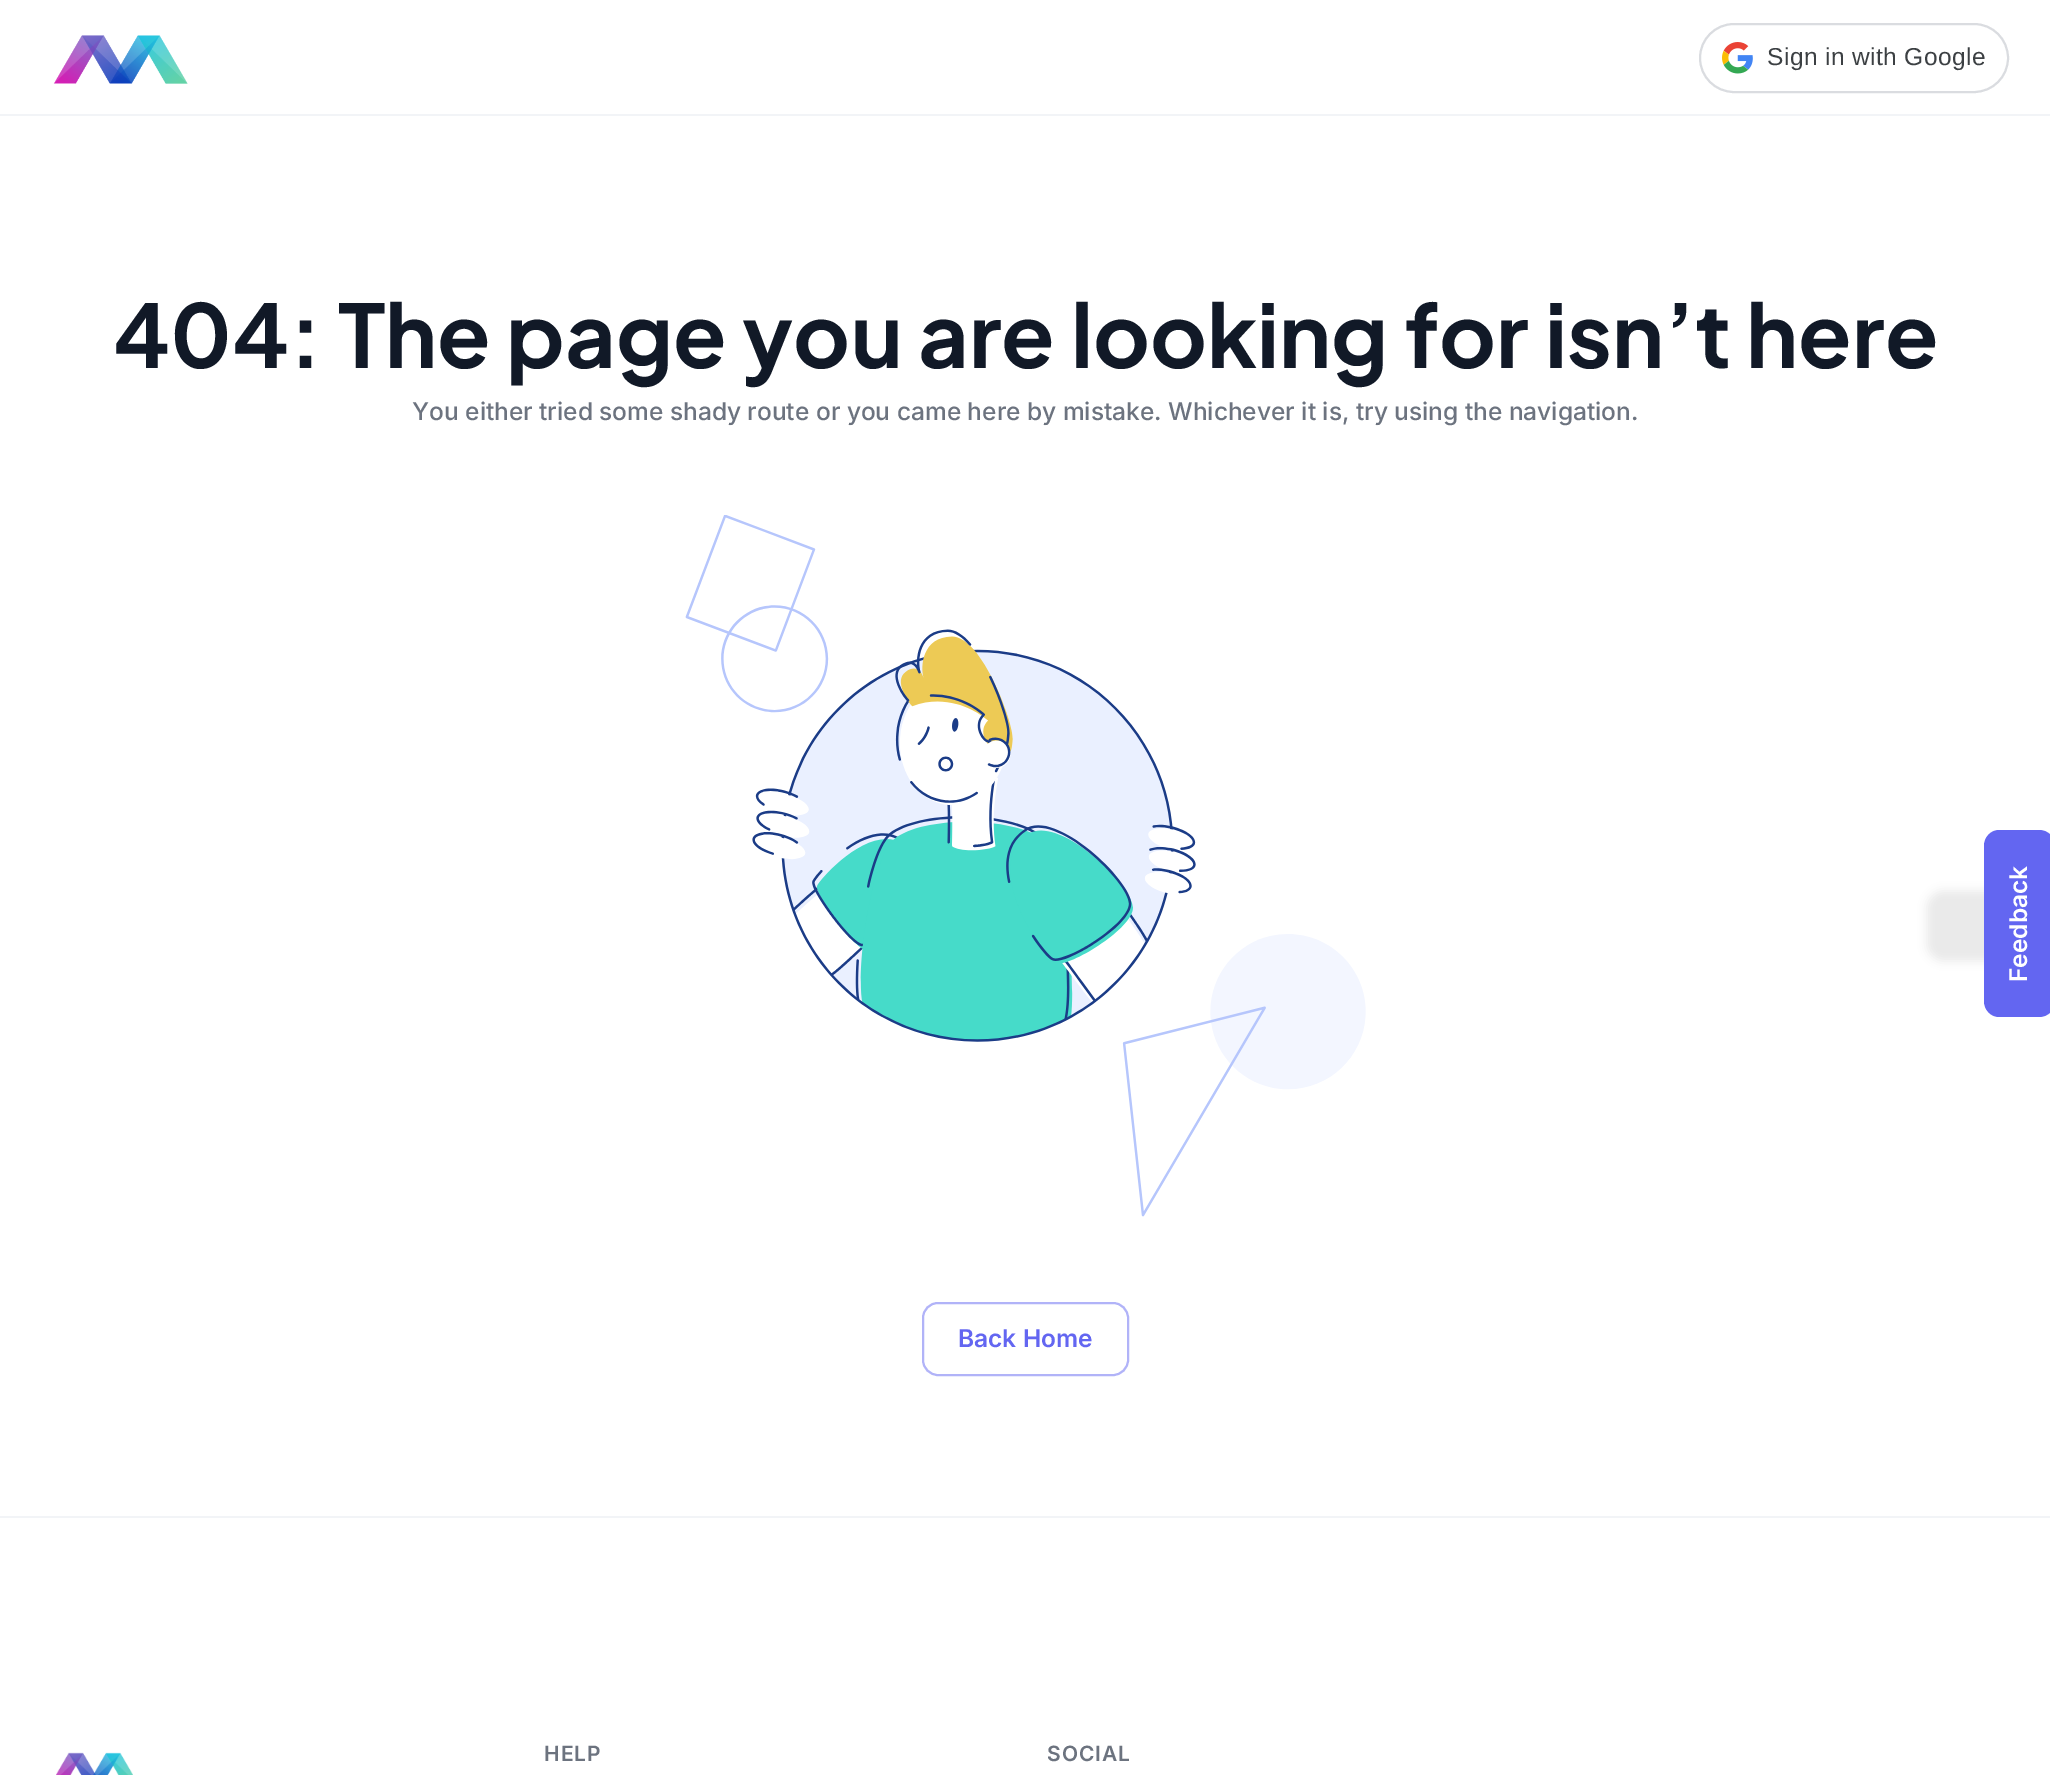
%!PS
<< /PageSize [2050 1775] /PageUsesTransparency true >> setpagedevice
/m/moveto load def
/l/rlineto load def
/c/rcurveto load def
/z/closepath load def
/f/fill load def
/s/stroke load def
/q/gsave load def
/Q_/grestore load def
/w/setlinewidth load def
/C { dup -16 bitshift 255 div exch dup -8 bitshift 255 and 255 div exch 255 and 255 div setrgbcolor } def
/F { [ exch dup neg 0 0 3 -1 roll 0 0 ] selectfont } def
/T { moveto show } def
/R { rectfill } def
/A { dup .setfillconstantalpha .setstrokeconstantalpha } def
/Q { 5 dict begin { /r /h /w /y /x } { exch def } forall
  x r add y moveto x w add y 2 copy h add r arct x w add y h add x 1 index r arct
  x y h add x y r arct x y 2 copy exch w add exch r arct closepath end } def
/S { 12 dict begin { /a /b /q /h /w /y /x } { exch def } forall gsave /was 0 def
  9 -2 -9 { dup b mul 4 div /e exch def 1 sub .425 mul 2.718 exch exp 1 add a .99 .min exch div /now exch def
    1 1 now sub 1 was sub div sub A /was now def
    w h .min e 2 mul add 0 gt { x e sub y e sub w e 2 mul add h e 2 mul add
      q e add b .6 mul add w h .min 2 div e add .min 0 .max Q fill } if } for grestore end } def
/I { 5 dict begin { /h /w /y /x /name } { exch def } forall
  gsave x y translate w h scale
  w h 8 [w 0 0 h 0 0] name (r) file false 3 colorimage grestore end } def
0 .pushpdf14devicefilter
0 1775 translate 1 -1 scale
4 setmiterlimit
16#FFFFFF C
0 0 2050 1775 R
16#F2F4F7 C
0 114 2050 2 R
(1.rgb) 53 35 135 49 I
16#DADCE0 C
2 w
1700 24 308 68 34 Q s
(2.rgb) 1722 42 31 32 I
/LiberationSans-Regular 24.5 F
16#3C4043 C
1767 65 m .4 0 (Sign in with Google) ashow
/PlusJakartaSans-Bold 87.5 F
16#111927 C
(404: The page you are looking for isn’t here) 113 368 T
/Inter-Medium 24.5 F
16#6C737F C
(You either tried some shady route or you came here by mistake. Whichever it is, try using the navigation.) 412 420 T
(3.rgb) 685 515 681 702 I
16#B1B3F8 C
923 1303 205 72 15 Q s
/Inter-SemiBold 24.5 F
16#6366F1 C
(Back Home) 958 1347 T
16#F2F4F7 C
0 1516 2050 2 R
(4.rgb) 56 1752 77 23 I
/Inter-SemiBold 21 F
16#6C737F C
544 1761 m 1 0 (HELP) ashow
1047 1761 m 1 0 (SOCIAL) ashow
16#000000 C
1927 891 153 70 16 4.5 .08 S
16#6366F1 C
1984 1001 m 0 -155 l 0 -9 7 -16 15 -16 c 40 0 l 9 0 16 7 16 16 c 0 155 l 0 9 -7 16 -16 16 c -40 0 l -8 0 -15 -7 -15 -16 c z f
/Inter-SemiBold 24.5 F
16#FFFFFF C
q 2027 982 translate -90 rotate 0 0 m (Feedback) show Q_
.poppdf14devicefilter showpage
